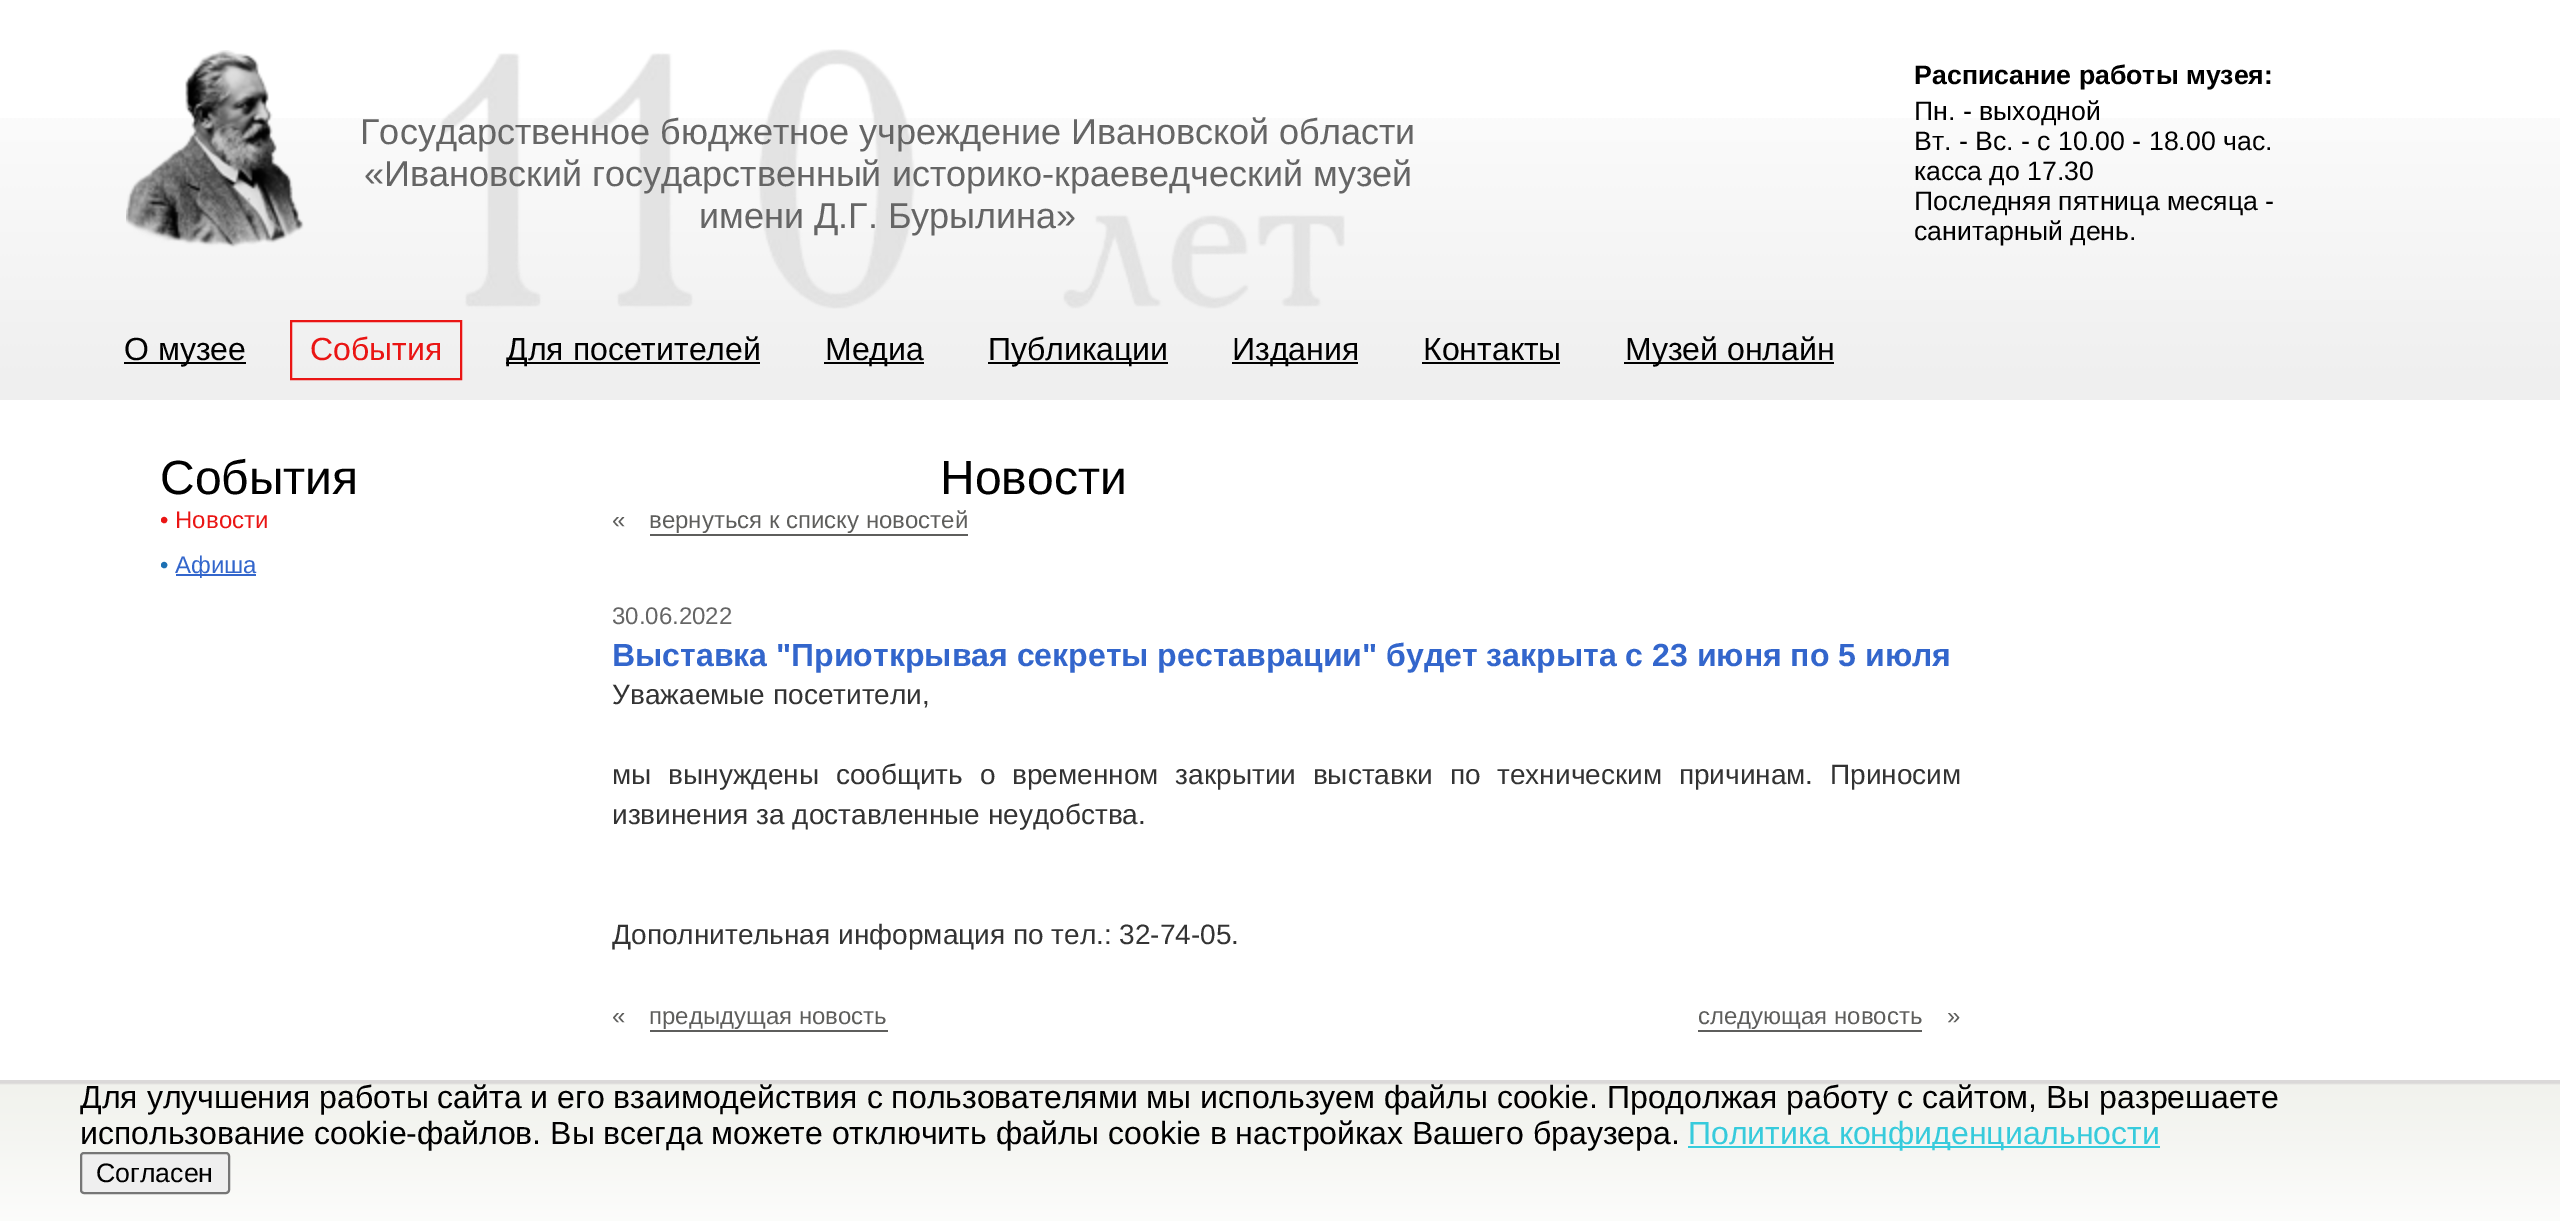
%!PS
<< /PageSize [2560 1231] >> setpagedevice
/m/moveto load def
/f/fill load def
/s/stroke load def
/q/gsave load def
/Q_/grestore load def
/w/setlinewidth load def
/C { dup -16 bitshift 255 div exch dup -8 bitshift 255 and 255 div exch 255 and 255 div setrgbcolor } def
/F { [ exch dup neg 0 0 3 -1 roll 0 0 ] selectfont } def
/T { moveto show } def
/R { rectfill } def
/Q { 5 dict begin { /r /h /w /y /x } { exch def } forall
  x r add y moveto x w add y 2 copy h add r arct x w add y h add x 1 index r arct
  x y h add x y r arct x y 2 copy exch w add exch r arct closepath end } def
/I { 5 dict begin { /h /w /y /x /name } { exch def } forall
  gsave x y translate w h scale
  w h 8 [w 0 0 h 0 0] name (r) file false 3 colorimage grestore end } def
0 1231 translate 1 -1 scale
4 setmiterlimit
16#FFFFFF C
0 0 2560 1231 R
(1.rgb) 0 118 2560 282 I
(2.rgb) 440 49 905 260 I
(3.rgb) 126 50 178 198 I
/LiberationSans-Regular 36 F
16#656565 C
(Государственное бюджетное учреждение Ивановской области) 360 144 T
(«Ивановский государственный историко-краеведческий музей) 364 186 T
(имени Д.Г. Бурылина») 699 228 T
/LiberationSans-Bold 26.7 F
16#000000 C
(Расписание работы музея:) 1914 84 T
/LiberationSans-Regular 26.7 F
(Пн. - выходной) 1914 120 T
(Вт. - Вс. - с 10.00 - 18.00 час.) 1914 150 T
(касса до 17.30) 1914 180 T
(Последняя пятница месяца -) 1914 210 T
(санитарный день.) 1914 240 T
124 362 122 2 R
/LiberationSans-Regular 32 F
(О музее) 124 360 T
16#EA1514 C
2 w
291 321 170 58 rectstroke
(События) 310 360 T
16#000000 C
506 362 254 2 R
(Для посетителей) 506 360 T
824 362 100 2 R
(Медиа) 825 360 T
988 362 180 2 R
(Публикации) 988 360 T
1232 362 126 2 R
(Издания) 1232 360 T
(Контакты) 1423 360 T
1422 362 138 2 R
1624 362 210 2 R
(Музей онлайн) 1625 360 T
/LiberationSans-Regular 48 F
(События) 160 494 T
/LiberationSans-Regular 24 F
16#EA1514 C
(• Новости) 160 528 T
16#1C70B3 C
(•) 160 573 T
16#3366CC C
176 574 80 2 R
(Афиша) 175 573 T
/LiberationSans-Regular 48 F
16#000000 C
(Новости) 940 494 T
/LiberationSans-Regular 24 F
16#5E5E5C C
(«) 612 528 T
(вернуться к списку новостей) 649 528 T
650 534 318 2 R
16#656565 C
(30.06.2022) 612 624 T
/LiberationSans-Bold 32 F
16#3366CC C
(Выставка "Приоткрывая секреты реставрации" будет закрыта с 23 июня по 5 июля) 612 666 T
/LiberationSans-Regular 28 F
16#333333 C
(Уважаемые посетители,) 612 704 T
612 784 m 9 0 32 (мы вынуждены сообщить о временном закрытии выставки по техническим причинам. Приносим) widthshow
(извинения за доставленные неудобства.) 612 824 T
(Дополнительная информация по тел.: 32-74-05.) 612 944 T
/LiberationSans-Regular 24 F
16#5E5E5C C
(«) 612 1024 T
(предыдущая новость) 649 1024 T
650 1030 238 2 R
(следующая новость) 1698 1024 T
1698 1030 224 2 R
(») 1947 1024 T
(4.rgb) 0 1080 2560 141 I
/LiberationSans-Regular 32 F
16#000000 C
(Для улучшения работы сайта и его взаимодействия с пользователями мы используем файлы cookie. Продолжая работу с сайтом, Вы разрешаете) 80 1108 T
(использование cookie-файлов. Вы всегда можете отключить файлы cookie в настройках Вашего браузера.) 80 1144 T
16#37CBDC C
1688 1146 472 2 R
(Политика конфиденциальности) 1688 1144 T
16#EFEFEF C
81 1153 148 40 3 Q q f Q_
16#767676 C
s
/LiberationSans-Regular 26.7 F
16#000000 C
(Согласен) 96 1182 T
showpage
